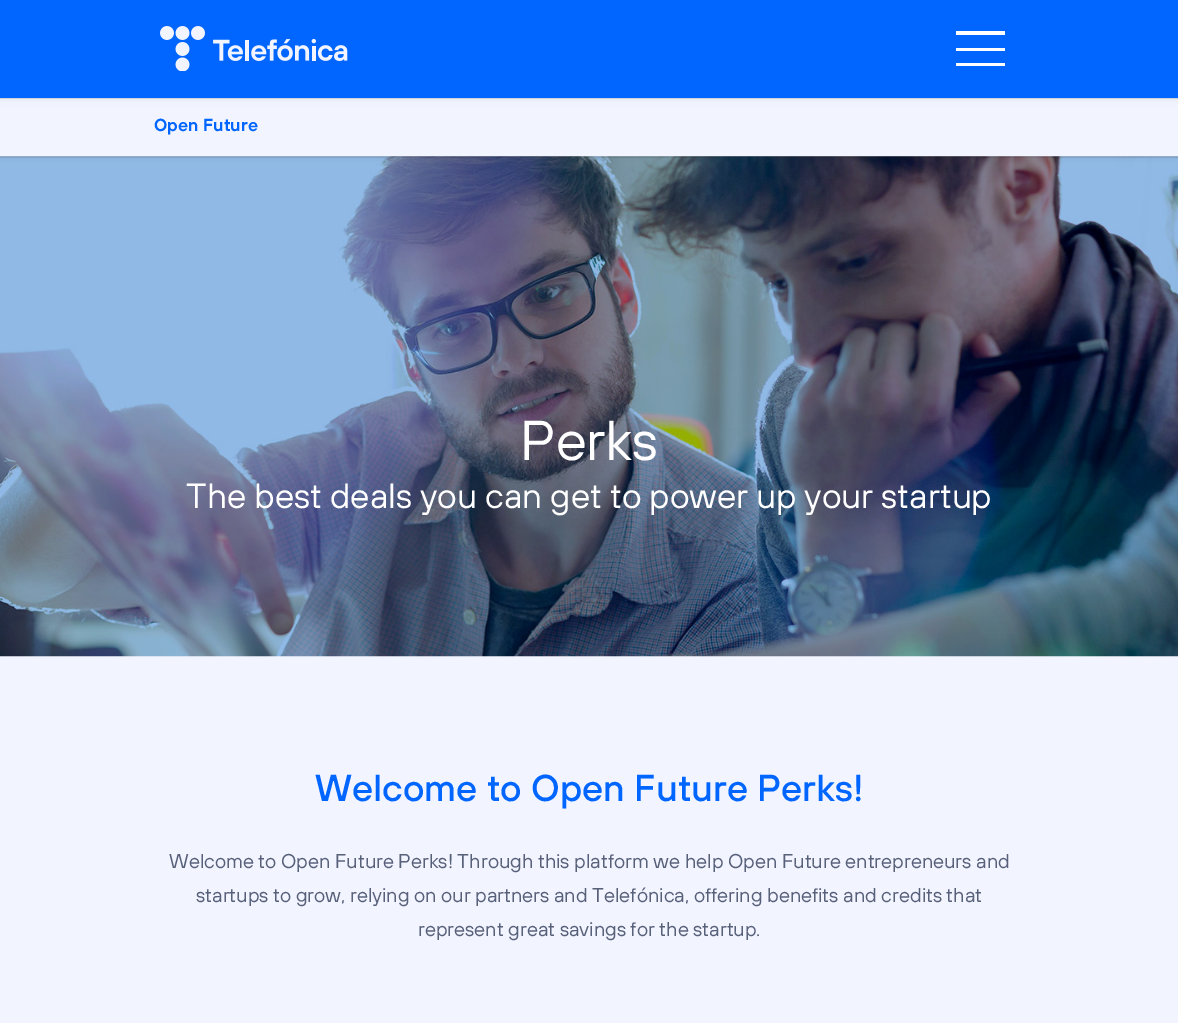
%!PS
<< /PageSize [1178 1023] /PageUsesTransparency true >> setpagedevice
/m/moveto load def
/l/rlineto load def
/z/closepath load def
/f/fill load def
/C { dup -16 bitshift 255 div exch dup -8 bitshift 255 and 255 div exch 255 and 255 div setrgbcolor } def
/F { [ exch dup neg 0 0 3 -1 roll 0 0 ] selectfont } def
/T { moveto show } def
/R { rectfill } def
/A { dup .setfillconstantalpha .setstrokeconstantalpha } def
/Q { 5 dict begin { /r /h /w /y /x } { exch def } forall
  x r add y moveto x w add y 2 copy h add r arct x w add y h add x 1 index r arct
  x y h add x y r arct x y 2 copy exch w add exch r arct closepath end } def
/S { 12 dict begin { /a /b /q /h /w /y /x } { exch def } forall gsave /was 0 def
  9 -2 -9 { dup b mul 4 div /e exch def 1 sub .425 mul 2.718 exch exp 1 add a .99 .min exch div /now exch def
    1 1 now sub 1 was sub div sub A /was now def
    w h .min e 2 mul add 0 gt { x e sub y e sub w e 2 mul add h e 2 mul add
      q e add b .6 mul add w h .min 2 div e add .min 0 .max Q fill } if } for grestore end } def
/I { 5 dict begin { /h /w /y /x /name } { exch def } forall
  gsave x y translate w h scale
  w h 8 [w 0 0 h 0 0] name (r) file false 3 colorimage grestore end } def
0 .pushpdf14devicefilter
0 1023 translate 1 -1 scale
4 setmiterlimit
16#FFFFFF C
0 0 1178 1023 R
16#F2F4FF C
0 656 1178 367 R
(2.rgb) 0 156 1178 501 I
16#3B4045 C
0 95 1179 63 0 4 .1 S
16#F2F4FF C
0 98 1178 58 R
16#3B4045 C
0 1 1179 98 0 4 .1 S
0.1 A
16#0C0D0E C
0 98 m 0 1 l 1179 0 l 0 -98 l 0 97 l z f
1 A
16#0066FF C
0 0 1178 98 R
(1.rgb) 160 26 188 45 I
16#FFFFFF C
956 31 49 4 R
956 48 49 3 R
956 63 49 3 R
0.1 A
16#0C0D0E C
0 156 m 0 2 l 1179 0 l 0 -63 l 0 61 l z f
/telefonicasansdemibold-SemiBold 17.5 F
1 A
16#0066FF C
(Open Future) 154 131 T
/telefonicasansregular-Regular 56 F
16#FFFFFF C
(Perks) 520 460 T
/telefonicasansregular-Regular 35 F
(The best deals you can get to power up your startup) 186 508 T
/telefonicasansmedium-Medium 37.5 F
16#0066FF C
(Welcome to Open Future Perks!) 315 801 T
/telefonicasansregular-Regular 20 F
16#58617A C
(Welcome to Open Future Perks! Through this platform we help Open Future entrepreneurs and) 169 868 T
(startups to grow, relying on our partners and Telefónica, offering benefits and credits that) 196 902 T
(represent great savings for the startup.) 418 936 T
.poppdf14devicefilter showpage
